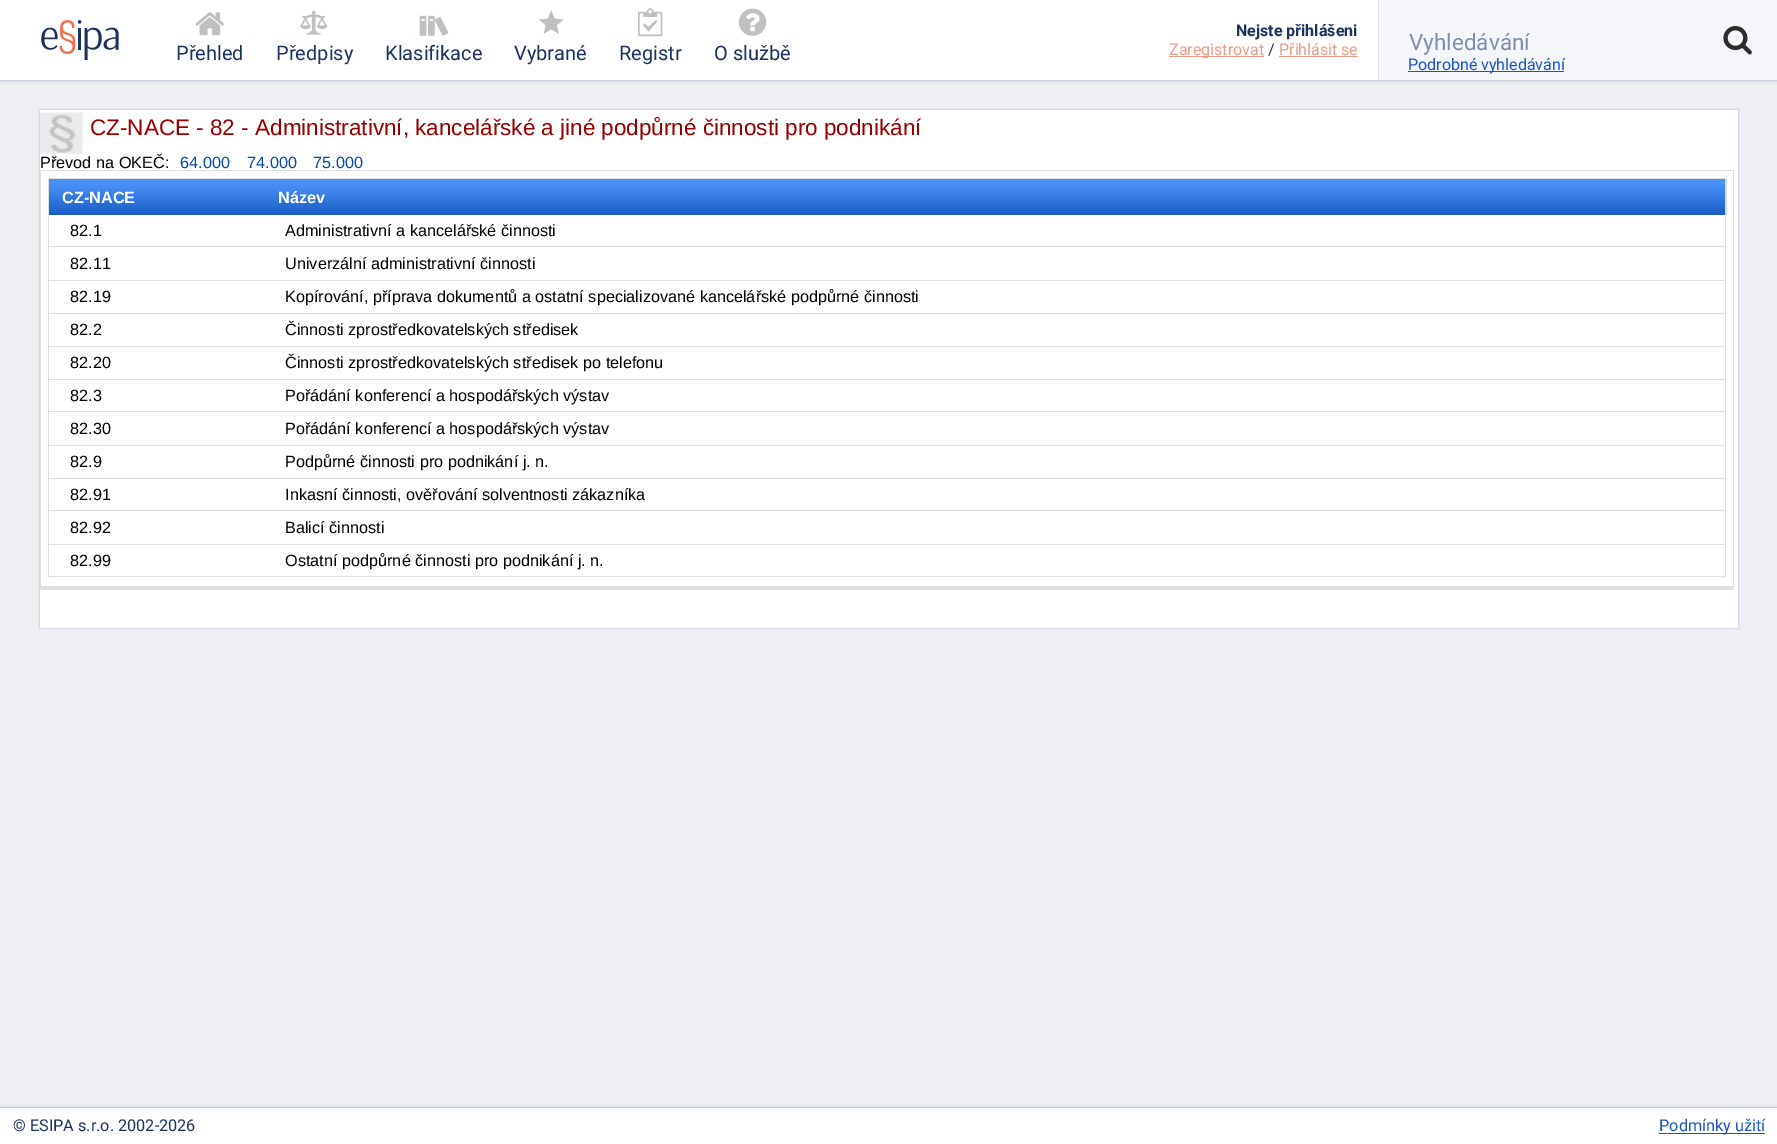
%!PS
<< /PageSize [1777 1144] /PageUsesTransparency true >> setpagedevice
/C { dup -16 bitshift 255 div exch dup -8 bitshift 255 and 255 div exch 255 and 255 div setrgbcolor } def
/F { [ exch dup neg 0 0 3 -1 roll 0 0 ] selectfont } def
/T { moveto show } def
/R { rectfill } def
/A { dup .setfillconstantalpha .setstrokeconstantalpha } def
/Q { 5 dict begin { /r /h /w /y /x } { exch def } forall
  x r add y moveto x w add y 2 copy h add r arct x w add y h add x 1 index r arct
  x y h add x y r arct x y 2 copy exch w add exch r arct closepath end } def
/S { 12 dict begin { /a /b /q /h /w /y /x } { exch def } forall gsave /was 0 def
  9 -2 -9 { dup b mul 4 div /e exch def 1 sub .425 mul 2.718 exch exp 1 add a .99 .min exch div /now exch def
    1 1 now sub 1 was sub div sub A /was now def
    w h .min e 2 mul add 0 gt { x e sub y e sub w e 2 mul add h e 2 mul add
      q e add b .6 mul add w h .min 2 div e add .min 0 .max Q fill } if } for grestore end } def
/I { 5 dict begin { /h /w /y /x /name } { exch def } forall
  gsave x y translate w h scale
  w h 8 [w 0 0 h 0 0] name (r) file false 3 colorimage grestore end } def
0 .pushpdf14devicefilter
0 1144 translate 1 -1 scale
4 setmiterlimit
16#EDEFF2 C
0 0 1777 1144 R
16#1B325F C
0 0 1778 80 0 2 .4 S
16#FFFFFF C
0 0 1378 80 R
(1.rgb) 41 20 78 40 I
(2.rgb) 195 12 30 24 I
/Roboto-Regular 20 F
16#1B325F C
(Přehled) 176 60 T
(3.rgb) 300 10 28 25 I
(Předpisy) 276 60 T
(4.rgb) 419 15 30 21 I
(Klasifikace) 385 60 T
(5.rgb) 539 10 25 24 I
(Vybrané) 514 60 T
(6.rgb) 638 8 25 29 I
(Registr) 619 60 T
(7.rgb) 738 8 29 28 I
(O službě) 714 60 T
/Roboto-Bold 16 F
(Nejste přihlášeni) 1236 36 T
16#E89D8C C
1169 56 95 1 R
/Roboto-Regular 16 F
(Zaregistrovat) 1169 55 T
16#1B325F C
(/) 1268 55 T
16#E89D8C C
(Přihlásit se) 1279 55 T
1279 56 79 1 R
16#D9DFED C
1378 0 1 80 R
16#F4F6FA C
1379 0 398 80 R
/Roboto-Regular 22.5 F
16#7E8EAB C
(Vyhledávání) 1409 50 T
(8.rgb) 1723 26 29 29 I
16#1B55C5 C
1408 71 156 1 R
/Roboto-Regular 16 F
(Podrobné vyhledávání) 1408 70 T
16#1B325F C
40 110 1698 518 0 1 .4 S
16#FFFFFF C
40 110 1698 518 R
(9.rgb) 40 112 43 42 I
/LiberationSans-Regular 22.5 F
16#980000 C
(CZ-NACE - 82 - Administrativní, kancelářské a jiné podpůrné činnosti pro podnikání) 90 135 T
/LiberationSans-Regular 16.25 F
16#000000 C
(Převod na OKEČ:) 40 168 T
16#0049A7 C
(64.000) 180 168 T
(74.000) 247 168 T
(75.000) 313 168 T
16#DFDFDF C
40 170 1694 1 R
1733 170 1 420 R
40 586 1694 4 R
40 170 1 420 R
(11.rgb) 265 178 1462 37 I
48 178 1678 1 R
1725 178 1 400 R
48 576 1678 1 R
48 178 1 400 R
(10.rgb) 49 179 216 36 I
/LiberationSans-Bold 16.25 F
16#FFFFFF C
(CZ-NACE) 62 203 T
(Název) 278 203 T
/LiberationSans-Regular 16.25 F
16#000000 C
(82.1) 70 236 T
16#DFDFDF C
48 246 1678 1 R
16#000000 C
(Administrativní a kancelářské činnosti) 285 236 T
(82.11) 70 269 T
16#DFDFDF C
48 280 1678 1 R
16#000000 C
(Univerzální administrativní činnosti) 285 269 T
(82.19) 70 302 T
16#DFDFDF C
48 313 1678 1 R
16#000000 C
(Kopírování, příprava dokumentů a ostatní specializované kancelářské podpůrné činnosti) 285 302 T
(82.2) 70 335 T
16#DFDFDF C
48 346 1678 1 R
16#000000 C
(Činnosti zprostředkovatelských středisek) 285 335 T
(82.20) 70 368 T
16#DFDFDF C
48 379 1678 1 R
16#000000 C
(Činnosti zprostředkovatelských středisek po telefonu) 285 368 T
(82.3) 70 401 T
16#DFDFDF C
48 411 1678 1 R
16#000000 C
(Pořádání konferencí a hospodářských výstav) 285 401 T
(82.30) 70 434 T
16#DFDFDF C
48 445 1678 1 R
16#000000 C
(Pořádání konferencí a hospodářských výstav) 285 434 T
(82.9) 70 467 T
16#DFDFDF C
48 478 1678 1 R
16#000000 C
(Podpůrné činnosti pro podnikání j. n.) 285 467 T
(82.91) 70 500 T
16#DFDFDF C
48 510 1678 1 R
16#000000 C
(Inkasní činnosti, ověřování solventnosti zákazníka) 285 500 T
(82.92) 70 533 T
16#DFDFDF C
48 544 1678 1 R
16#000000 C
(Balicí činnosti) 285 533 T
(82.99) 70 566 T
(Ostatní podpůrné činnosti pro podnikání j. n.) 285 566 T
16#1B325F C
0 1108 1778 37 0 1.5 .4 S
16#FFFFFF C
0 1108 1777 36 R
/Roboto-Regular 16.25 F
16#1B325F C
(© ESIPA s.r.o. 2002-2026) 13 1131 T
16#1B55C5 C
1659 1133 106 1 R
(Podmínky užití) 1659 1131 T
.poppdf14devicefilter showpage
